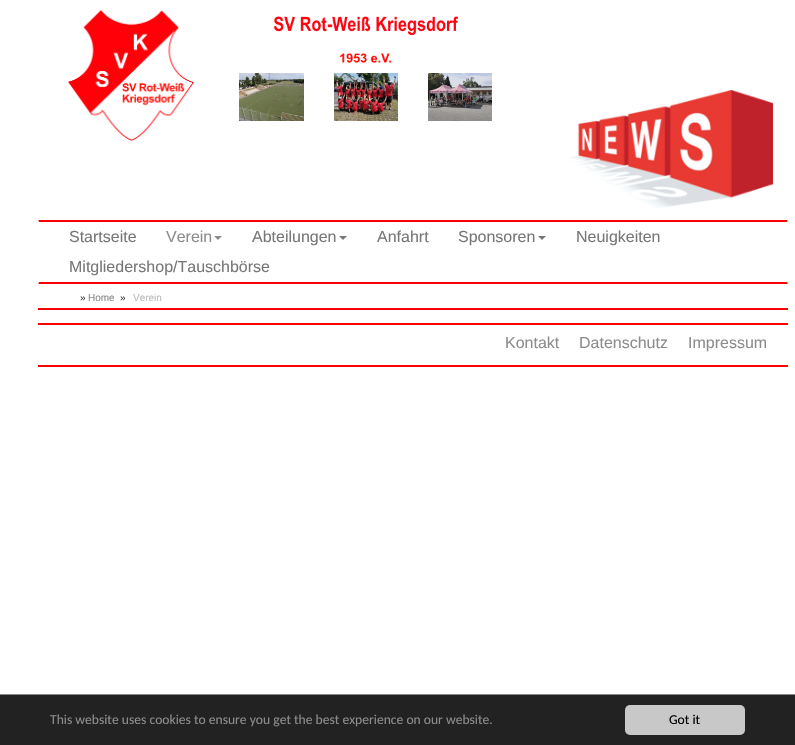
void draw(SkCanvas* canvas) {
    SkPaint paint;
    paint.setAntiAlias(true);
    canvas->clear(0xFFFFFFFF);
    canvas->drawImageRect(SkImages::DeferredFromEncodedData(SkData::MakeFromFileName("img1.png")), SkRect::MakeXYWH(68, 10, 126, 131), SkSamplingOptions());
    canvas->drawImageRect(SkImages::DeferredFromEncodedData(SkData::MakeFromFileName("img2.png")), SkRect::MakeXYWH(273, 16, 186, 47), SkSamplingOptions());
    canvas->drawImageRect(SkImages::DeferredFromEncodedData(SkData::MakeFromFileName("img3.png")), SkRect::MakeXYWH(239, 73, 65, 48), SkSamplingOptions());
    canvas->drawImageRect(SkImages::DeferredFromEncodedData(SkData::MakeFromFileName("img4.png")), SkRect::MakeXYWH(334, 73, 64, 48), SkSamplingOptions());
    canvas->drawImageRect(SkImages::DeferredFromEncodedData(SkData::MakeFromFileName("img5.png")), SkRect::MakeXYWH(428, 73, 64, 48), SkSamplingOptions());
    canvas->drawImageRect(SkImages::DeferredFromEncodedData(SkData::MakeFromFileName("img6.png")), SkRect::MakeXYWH(567, 90, 206, 118), SkSamplingOptions());
    paint.setColor(0xFFFF0000);
    canvas->drawPath(SkPathBuilder().moveTo(38, 220).lineTo(788, 220).lineTo(787, 222).lineTo(39, 222).close().detach(), paint);
    paint.setColor(0xFFFFFFFF);
    canvas->drawPath(SkPathBuilder().moveTo(788, 220).lineTo(788, 284).lineTo(787, 282).lineTo(787, 222).close().detach(), paint);
    paint.setColor(0xFFFF0000);
    canvas->drawPath(SkPathBuilder().moveTo(788, 284).lineTo(38, 284).lineTo(39, 282).lineTo(787, 282).close().detach(), paint);
    paint.setColor(0xFFFFFFFF);
    canvas->drawPath(SkPathBuilder().moveTo(38, 284).lineTo(38, 220).lineTo(39, 222).lineTo(39, 282).close().detach(), paint);
    SkFont font1(fontMgr->matchFamilyStyle("Liberation Sans", SkFontStyle::Normal()), 16);
    font1.setSubpixel(true);
    paint.setColor(0xFF777777);
    canvas->drawString("Startseite", 69, 242, font1, paint);
    paint.setColor(0xFF8C8C8C);
    canvas->drawString("Verein", 166, 242, font1, paint);
    canvas->drawPath(SkPathBuilder().moveTo(214, 236).lineTo(222, 236).lineTo(218, 240).close().detach(), paint);
    paint.setColor(0xFF777777);
    canvas->drawString("Abteilungen", 252, 242, font1, paint);
    canvas->drawPath(SkPathBuilder().moveTo(339, 236).lineTo(347, 236).lineTo(343, 240).close().detach(), paint);
    canvas->drawString("Anfahrt", 377, 242, font1, paint);
    canvas->drawString("Sponsoren", 458, 242, font1, paint);
    canvas->drawPath(SkPathBuilder().moveTo(538, 236).lineTo(546, 236).lineTo(542, 240).close().detach(), paint);
    canvas->drawString("Neuigkeiten", 576, 242, font1, paint);
    canvas->drawString("Mitgliedershop/Tauschbörse", 69, 272, font1, paint);
    paint.setColor(0xFFFF0000);
    canvas->drawRect(SkRect::MakeXYWH(38, 308, 750, 2), paint);
    SkFont font2(fontMgr->matchFamilyStyle("Liberation Sans", SkFontStyle::Normal()), 10);
    font2.setSubpixel(true);
    paint.setColor(0xFF333333);
    canvas->drawString("»", 80, 301, font2, paint);
    paint.setColor(0xFF8C8C8C);
    canvas->drawString("Home", 88, 301, font2, paint);
    paint.setColor(0xFF333333);
    canvas->drawString("»", 120, 301, font2, paint);
    paint.setColor(0xFFBBBBBB);
    canvas->drawString("Verein", 133, 301, font2, paint);
    paint.setColor(0xFFFF0000);
    canvas->drawRect(SkRect::MakeXYWH(38, 323, 750, 2), paint);
    canvas->drawRect(SkRect::MakeXYWH(38, 365, 750, 2), paint);
    paint.setColor(0xFF8C8C8C);
    canvas->drawString("Kontakt", 505, 348, font1, paint);
    canvas->drawString("Datenschutz", 579, 348, font1, paint);
    canvas->drawString("Impressum", 688, 348, font1, paint);
    paint.setColor(0xFF222222);
    canvas->drawRect(SkRect::MakeXYWH(0, 695, 795, 50), paint);
    paint.setColor(0xFF888888);
    canvas->drawRect(SkRect::MakeXYWH(0, 694, 795, 1), paint);
    SkFont font3(fontMgr->matchFamilyStyle("Carlito", SkFontStyle::Normal()), 13.6f);
    font3.setSubpixel(true);
    paint.setColor(0xFF8C8C8C);
    canvas->drawString("This website uses cookies to ensure you get the best experience on our website.", 50, 724, font3, paint);
    paint.setColor(0xFFC8C8C8);
    canvas->drawRoundRect(SkRect::MakeXYWH(625, 705, 120, 30), 5, 5, paint);
    paint.setColor(0xFF000000);
    canvas->drawString("Got it", 669, 724, font3, paint);
}
